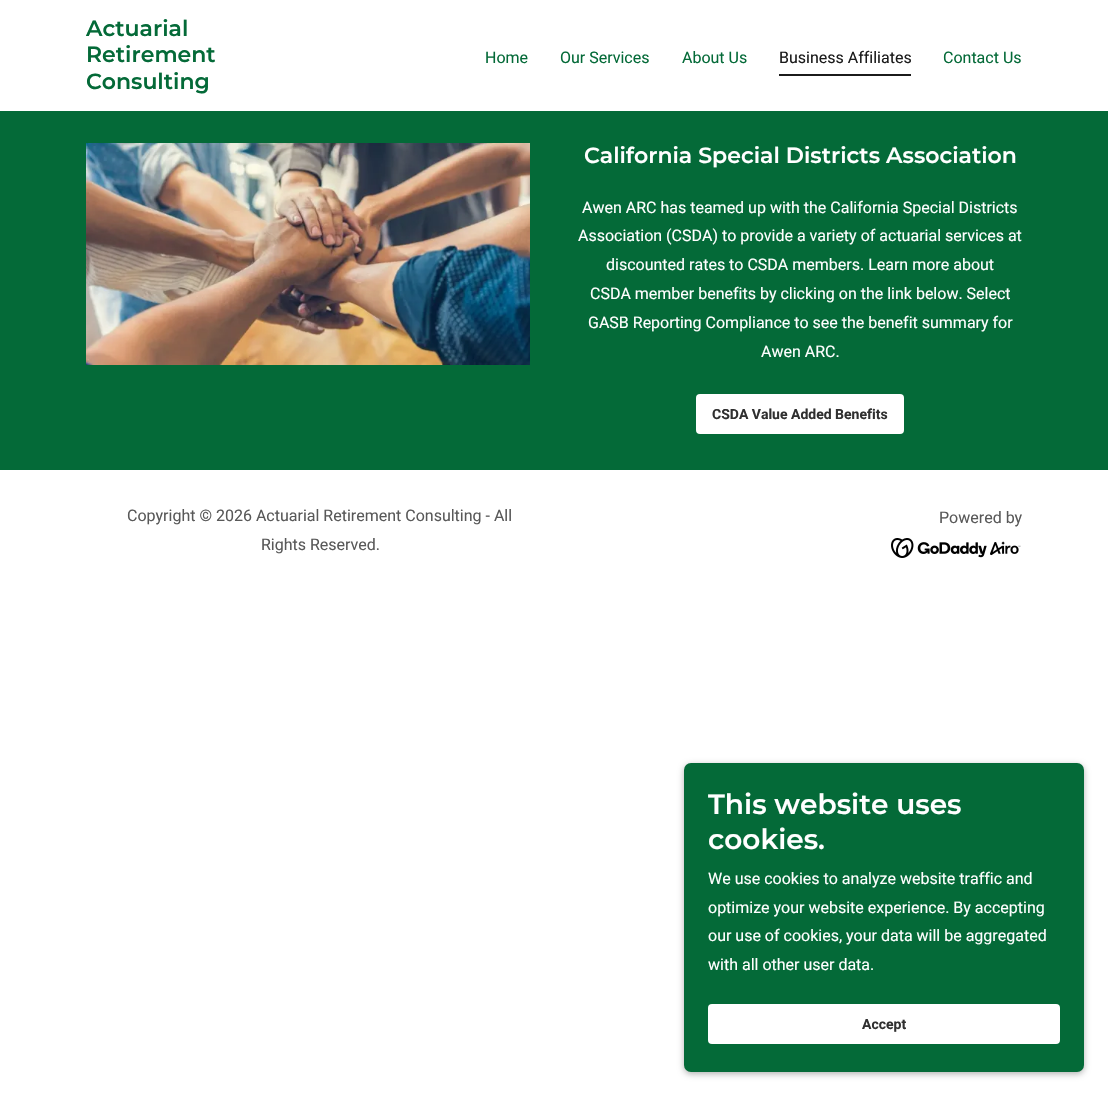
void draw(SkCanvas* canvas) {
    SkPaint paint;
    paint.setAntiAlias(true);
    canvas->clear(0xFFFFFFFF);
    SkFont font1(fontMgr->matchFamilyStyle("Montserrat", SkFontStyle(600, SkFontStyle::kNormal_Width, SkFontStyle::kUpright_Slant)), 22);
    font1.setSubpixel(true);
    paint.setColor(0xFF046A38);
    canvas->drawString("Actuarial", 86, 36, font1, paint);
    canvas->drawString("Retirement", 86, 62, font1, paint);
    canvas->drawString("Consulting", 86, 89, font1, paint);
    SkFont font2(fontMgr->matchFamilyStyle("Roboto", SkFontStyle::Normal()), 16);
    font2.setSubpixel(true);
    canvas->drawString("Home", 485, 63, font2, paint);
    canvas->drawString("Our Services", 560, 63, font2, paint);
    canvas->drawString("About Us", 682, 63, font2, paint);
    paint.setColor(0xFF1B1B1B);
    canvas->drawRect(SkRect::MakeXYWH(779, 74, 132, 2), paint);
    canvas->drawString("Business Affiliates", 779, 63, font2, paint);
    paint.setColor(0xFF046A38);
    canvas->drawString("Contact Us", 943, 63, font2, paint);
    canvas->drawRect(SkRect::MakeXYWH(0, 111, 1108, 359), paint);
    canvas->drawImageRect(SkImages::DeferredFromEncodedData(SkData::MakeFromFileName("img1.png")), SkRect::MakeXYWH(86, 143, 444, 222), SkSamplingOptions());
    paint.setColor(0xFFFFFFFF);
    canvas->drawString("California Special Districts Association", 584, 163, font1, paint);
    canvas->drawString("Awen ARC has teamed up with the California Special Districts", 582, 213, font2, paint);
    canvas->drawString("Association (CSDA) to provide a variety of actuarial services at", 578, 241, font2, paint);
    canvas->drawString("discounted rates to CSDA members. Learn more about", 606, 270, font2, paint);
    canvas->drawString("CSDA member benefits by clicking on the link below. Select", 590, 299, font2, paint);
    canvas->drawString("GASB Reporting Compliance to see the benefit summary for", 588, 328, font2, paint);
    canvas->drawString("Awen ARC.", 761, 357, font2, paint);
    canvas->drawRoundRect(SkRect::MakeXYWH(696, 394, 208, 40), 4, 4, paint);
    SkFont font3(fontMgr->matchFamilyStyle("Roboto", SkFontStyle::Bold()), 14);
    font3.setSubpixel(true);
    paint.setColor(0xFF303030);
    canvas->drawString("CSDA Value Added Benefits", 712, 419, font3, paint);
    paint.setColor(0xFF595959);
    canvas->drawString("Copyright © 2026 Actuarial Retirement Consulting - All", 127, 521, font2, paint);
    canvas->drawString("Rights Reserved.", 261, 550, font2, paint);
    canvas->drawString("Powered by", 939, 523, font2, paint);
    canvas->drawImageRect(SkImages::DeferredFromEncodedData(SkData::MakeFromFileName("img2.png")), SkRect::MakeXYWH(891, 538, 130, 20), SkSamplingOptions());
    paint.setColor(0x4D000000);
    paint.setMaskFilter(SkMaskFilter::MakeBlur(kNormal_SkBlurStyle, 3));
    canvas->drawRoundRect(SkRect::MakeXYWH(684, 765, 400, 309), 7, 7, paint);
    paint.setMaskFilter(nullptr);
    paint.setColor(0xFF046A38);
    canvas->drawRoundRect(SkRect::MakeXYWH(684, 763, 400, 309), 7, 7, paint);
    SkFont font4(fontMgr->matchFamilyStyle("Montserrat", SkFontStyle(600, SkFontStyle::kNormal_Width, SkFontStyle::kUpright_Slant)), 28);
    font4.setSubpixel(true);
    paint.setColor(0xFFFFFFFF);
    canvas->drawString("This website uses", 708, 814, font4, paint);
    canvas->drawString("cookies.", 708, 849, font4, paint);
    canvas->drawString("We use cookies to analyze website traffic and", 708, 884, font2, paint);
    canvas->drawString("optimize your website experience. By accepting", 708, 913, font2, paint);
    canvas->drawString("our use of cookies, your data will be aggregated", 708, 941, font2, paint);
    canvas->drawString("with all other user data.", 708, 970, font2, paint);
    canvas->drawRoundRect(SkRect::MakeXYWH(708, 1004, 352, 40), 4, 4, paint);
    paint.setColor(0xFF303030);
    canvas->drawString("Accept", 862, 1029, font3, paint);
}
